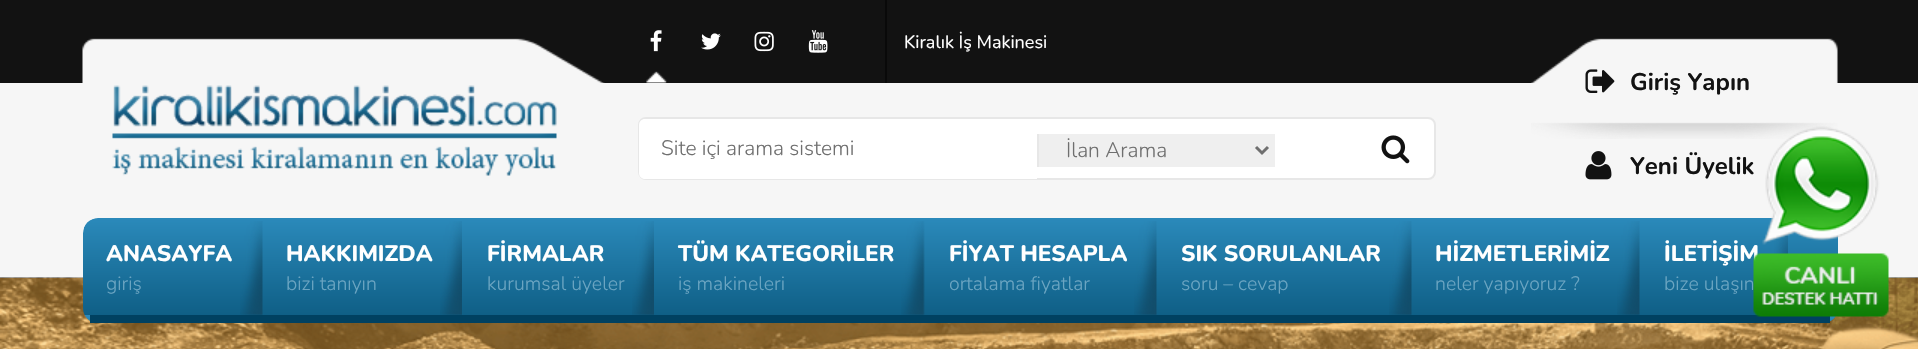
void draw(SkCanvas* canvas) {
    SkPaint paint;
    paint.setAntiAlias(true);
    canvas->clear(0xFFF6F6F6);
    paint.setColor(0xFF121212);
    canvas->drawRect(SkRect::MakeXYWH(0, 0, 1918, 83), paint);
    canvas->drawImageRect(SkImages::DeferredFromEncodedData(SkData::MakeFromFileName("img1.png")), SkRect::MakeXYWH(82, 38, 523, 45), SkSamplingOptions());
    canvas->drawImageRect(SkImages::DeferredFromEncodedData(SkData::MakeFromFileName("img2.png")), SkRect::MakeXYWH(112, 85, 445, 91), SkSamplingOptions());
    canvas->drawImageRect(SkImages::DeferredFromEncodedData(SkData::MakeFromFileName("img3.png")), SkRect::MakeXYWH(646, 71, 21, 12), SkSamplingOptions());
    canvas->drawImageRect(SkImages::DeferredFromEncodedData(SkData::MakeFromFileName("img4.png")), SkRect::MakeXYWH(650, 30, 12, 22), SkSamplingOptions());
    canvas->drawImageRect(SkImages::DeferredFromEncodedData(SkData::MakeFromFileName("img5.png")), SkRect::MakeXYWH(701, 33, 20, 17), SkSamplingOptions());
    canvas->drawImageRect(SkImages::DeferredFromEncodedData(SkData::MakeFromFileName("img6.png")), SkRect::MakeXYWH(754, 31, 20, 21), SkSamplingOptions());
    canvas->drawImageRect(SkImages::DeferredFromEncodedData(SkData::MakeFromFileName("img7.png")), SkRect::MakeXYWH(808, 30, 20, 23), SkSamplingOptions());
    paint.setColor(0xFF090909);
    canvas->drawRect(SkRect::MakeXYWH(885, 0, 2, 83), paint);
    SkFont font1(fontMgr->matchFamilyStyle("Nunito", SkFontStyle::Normal()), 18);
    font1.setSubpixel(true);
    paint.setColor(0xFFFFFFFF);
    canvas->drawString("Kiralık İş Makinesi", 904, 48, font1, paint);
    canvas->drawRoundRect(SkRect::MakeXYWH(639, 118, 796, 61), 7, 7, paint);
    paint.setStyle(SkPaint::kStroke_Style);
    paint.setStrokeWidth(2);
    paint.setColor(0xFFE7E7E7);
    canvas->drawRoundRect(SkRect::MakeXYWH(639, 118, 796, 61), 7, 7, paint);
    paint.setStyle(SkPaint::kFill_Style);
    paint.setColor(0xFFFFFFFF);
    canvas->drawPath(SkPathBuilder().moveTo(645, 119).lineTo(1037, 119).lineTo(1037, 179).lineTo(645, 179).cubicTo(641.5f, 179, 639, 176.5f, 639, 173).lineTo(639, 125).cubicTo(639, 121.5f, 641.5f, 119, 645, 119).close().detach(), paint);
    SkFont font2(fontMgr->matchFamilyStyle("Nunito", SkFontStyle(300, SkFontStyle::kNormal_Width, SkFontStyle::kUpright_Slant)), 21);
    font2.setSubpixel(true);
    paint.setColor(0xFF6F6F6F);
    canvas->drawString("Site içi arama sistemi", 661, 155, font2, paint);
    paint.setColor(0xFFEFEFEF);
    canvas->drawRect(SkRect::MakeXYWH(1039, 134, 236, 33), paint);
    paint.setColor(0xFFE7E7E7);
    canvas->drawRect(SkRect::MakeXYWH(1037, 134, 2, 33), paint);
    paint.setStyle(SkPaint::kStroke_Style);
    paint.setStrokeWidth(3);
    paint.setColor(0xFF6F6F6F);
    canvas->drawPath(SkPathBuilder().moveTo(1256, 147).lineTo(1262, 153).lineTo(1268, 147).detach(), paint);
    paint.setStyle(SkPaint::kFill_Style);
    canvas->drawString("İlan Arama", 1066, 157, font2, paint);
    canvas->drawImageRect(SkImages::DeferredFromEncodedData(SkData::MakeFromFileName("img8.png")), SkRect::MakeXYWH(1381, 135, 29, 29), SkSamplingOptions());
    canvas->drawImageRect(SkImages::DeferredFromEncodedData(SkData::MakeFromFileName("img9.png")), SkRect::MakeXYWH(1531, 38, 307, 101), SkSamplingOptions());
    canvas->drawImageRect(SkImages::DeferredFromEncodedData(SkData::MakeFromFileName("img10.png")), SkRect::MakeXYWH(1585, 69, 30, 24), SkSamplingOptions());
    SkFont font3(fontMgr->matchFamilyStyle("Nunito", SkFontStyle::Bold()), 24);
    font3.setSubpixel(true);
    paint.setColor(0xFF121212);
    canvas->drawString("Giriş Yapın", 1630, 90, font3, paint);
    canvas->drawImageRect(SkImages::DeferredFromEncodedData(SkData::MakeFromFileName("img11.png")), SkRect::MakeXYWH(1585, 151, 27, 29), SkSamplingOptions());
    canvas->drawString("Yeni Üyelik", 1630, 174, font3, paint);
    canvas->drawImageRect(SkImages::DeferredFromEncodedData(SkData::MakeFromFileName("img18.png")), SkRect::MakeXYWH(0, 277, 1918, 72), SkSamplingOptions());
    canvas->save();
    canvas->clipPath(SkPathBuilder().moveTo(98, 218).lineTo(1823, 218).cubicTo(1831.5f, 218, 1838, 224.5f, 1838, 233).lineTo(1838, 308).cubicTo(1838, 316.5f, 1831.5f, 323, 1823, 323).lineTo(98, 323).cubicTo(89.5f, 323, 83, 316.5f, 83, 308).lineTo(83, 233).cubicTo(83, 224.5f, 89.5f, 218, 98, 218).close().detach(), true);
    {
        const SkColor colors[] = {0xFF2B8ABB, 0xFF0F5F86};
        const float stops[] = {0, 1};
        const SkPoint ends[] = {{960, 217}, {960, 315}};
        paint.setShader(SkGradientShader::MakeLinear(ends, colors, stops, 2, SkTileMode::kClamp));
        paint.setAlpha(255);
    }
    canvas->drawPath(SkPathBuilder().moveTo(98, 218).lineTo(1823, 218).cubicTo(1831.5f, 218, 1838, 224.5f, 1838, 233).lineTo(1838, 315).lineTo(83, 315).lineTo(83, 233).cubicTo(83, 224.5f, 89.5f, 218, 98, 218).close().detach(), paint);
    {
        const SkColor colors[] = {0xFF2B8ABB, 0xFF0F5F86};
        const float stops[] = {0, 1};
        const SkPoint ends[] = {{960, 315}, {960, 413}};
        paint.setShader(SkGradientShader::MakeLinear(ends, colors, stops, 2, SkTileMode::kClamp));
        paint.setAlpha(255);
    }
    canvas->drawRect(SkRect::MakeXYWH(83, 315, 1755, 7), paint);
    canvas->restore();
    paint.setShader(nullptr);
    paint.setColor(0xFF004161);
    canvas->drawRect(SkRect::MakeXYWH(90, 315, 1740, 8), paint);
    canvas->drawImageRect(SkImages::DeferredFromEncodedData(SkData::MakeFromFileName("img12.png")), SkRect::MakeXYWH(240, 221, 23, 94), SkSamplingOptions());
    SkFont font4(fontMgr->matchFamilyStyle("Nunito", SkFontStyle(800, SkFontStyle::kNormal_Width, SkFontStyle::kUpright_Slant)), 22.5f);
    font4.setSubpixel(true);
    paint.setColor(0xFFFFFFFF);
    canvas->drawString("ANASAYFA", 106, 261, font4, paint);
    SkFont font5(fontMgr->matchFamilyStyle("Nunito", SkFontStyle(300, SkFontStyle::kNormal_Width, SkFontStyle::kUpright_Slant)), 19.5f);
    font5.setSubpixel(true);
    paint.setColor(0xFF6BA5C2);
    canvas->drawString("giriş", 106, 290, font5, paint);
    canvas->drawImageRect(SkImages::DeferredFromEncodedData(SkData::MakeFromFileName("img13.png")), SkRect::MakeXYWH(440, 221, 22, 94), SkSamplingOptions());
    paint.setColor(0xFFFFFFFF);
    canvas->drawString("HAKKIMIZDA", 286, 261, font4, paint);
    paint.setColor(0xFF6BA5C2);
    canvas->drawString("bizi tanıyın", 286, 290, font5, paint);
    canvas->drawImageRect(SkImages::DeferredFromEncodedData(SkData::MakeFromFileName("img13.png")), SkRect::MakeXYWH(632, 221, 22, 94), SkSamplingOptions());
    paint.setColor(0xFFFFFFFF);
    canvas->drawString("FİRMALAR", 487, 261, font4, paint);
    paint.setColor(0xFF6BA5C2);
    canvas->drawString("kurumsal üyeler", 487, 290, font5, paint);
    canvas->drawImageRect(SkImages::DeferredFromEncodedData(SkData::MakeFromFileName("img14.png")), SkRect::MakeXYWH(901, 221, 24, 94), SkSamplingOptions());
    paint.setColor(0xFFFFFFFF);
    canvas->drawString("TÜM KATEGORİLER", 678, 261, font4, paint);
    paint.setColor(0xFF6BA5C2);
    canvas->drawString("iş makineleri", 678, 290, font5, paint);
    canvas->drawImageRect(SkImages::DeferredFromEncodedData(SkData::MakeFromFileName("img15.png")), SkRect::MakeXYWH(1134, 221, 23, 94), SkSamplingOptions());
    paint.setColor(0xFFFFFFFF);
    canvas->drawString("FİYAT HESAPLA", 949, 261, font4, paint);
    paint.setColor(0xFF6BA5C2);
    canvas->drawString("ortalama fiyatlar", 949, 290, font5, paint);
    canvas->drawImageRect(SkImages::DeferredFromEncodedData(SkData::MakeFromFileName("img15.png")), SkRect::MakeXYWH(1389, 221, 23, 94), SkSamplingOptions());
    paint.setColor(0xFFFFFFFF);
    canvas->drawString("SIK SORULANLAR", 1181, 261, font4, paint);
    paint.setColor(0xFF6BA5C2);
    canvas->drawString("soru – cevap", 1181, 290, font5, paint);
    canvas->drawImageRect(SkImages::DeferredFromEncodedData(SkData::MakeFromFileName("img12.png")), SkRect::MakeXYWH(1617, 221, 23, 94), SkSamplingOptions());
    paint.setColor(0xFFFFFFFF);
    canvas->drawString("HİZMETLERİMİZ", 1435, 261, font4, paint);
    paint.setColor(0xFF6BA5C2);
    canvas->drawString("neler yapıyoruz ?", 1435, 290, font5, paint);
    canvas->drawImageRect(SkImages::DeferredFromEncodedData(SkData::MakeFromFileName("img16.png")), SkRect::MakeXYWH(1774, 233, 14, 21), SkSamplingOptions());
    paint.setColor(0xFFFFFFFF);
    canvas->drawString("İLETİŞİM", 1664, 261, font4, paint);
    paint.setColor(0xFF6BA5C2);
    canvas->drawString("bize ulaşın", 1664, 290, font5, paint);
    canvas->drawImageRect(SkImages::DeferredFromEncodedData(SkData::MakeFromFileName("img17.png")), SkRect::MakeXYWH(1753, 126, 136, 191), SkSamplingOptions());
}
